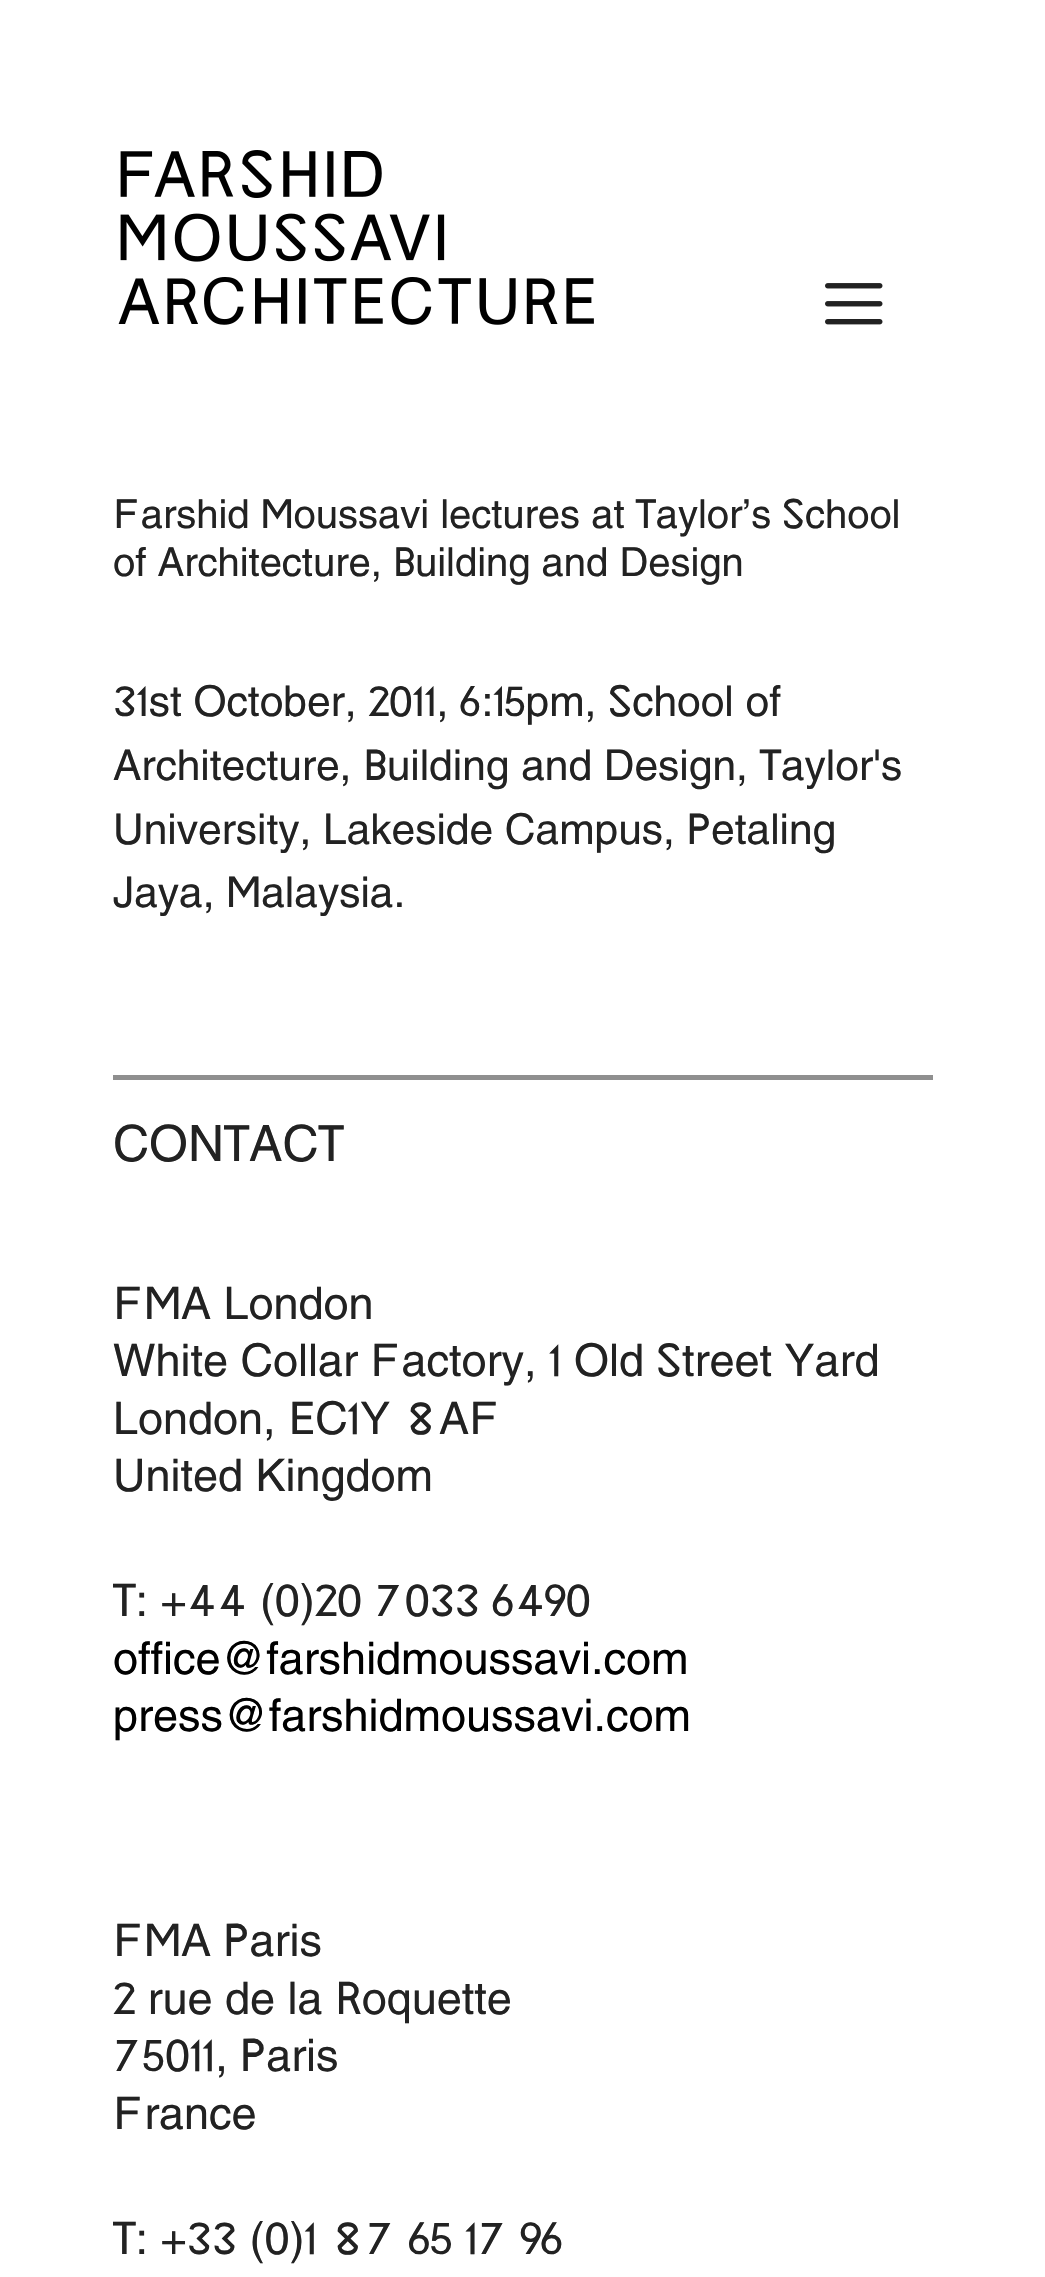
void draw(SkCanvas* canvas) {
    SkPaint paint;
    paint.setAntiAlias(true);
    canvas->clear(0xFFFFFFFF);
    canvas->drawImageRect(SkImages::DeferredFromEncodedData(SkData::MakeFromFileName("img1.png")), SkRect::MakeXYWH(118, 150, 476, 175), SkSamplingOptions());
    canvas->drawImageRect(SkImages::DeferredFromEncodedData(SkData::MakeFromFileName("img2.png")), SkRect::MakeXYWH(825, 283, 58, 42), SkSamplingOptions());
    SkFont font1(fontMgr->matchFamilyStyle("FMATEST", SkFontStyle(500, SkFontStyle::kNormal_Width, SkFontStyle::kUpright_Slant)), 40);
    font1.setSubpixel(true);
    paint.setColor(0xFF222222);
    canvas->drawString("Farshid Moussavi lectures at Taylor’s School", 113, 528, font1, paint);
    canvas->drawString("of Architecture, Building and Design", 113, 576, font1, paint);
    SkFont font2(fontMgr->matchFamilyStyle("FMATEST", SkFontStyle(500, SkFontStyle::kNormal_Width, SkFontStyle::kUpright_Slant)), 42.5f);
    font2.setSubpixel(true);
    canvas->drawString("31st October, 2011, 6:15pm, School of", 113, 716, font2, paint);
    canvas->drawString("Architecture, Building and Design, Taylor's", 113, 780, font2, paint);
    canvas->drawString("University, Lakeside Campus, Petaling", 113, 844, font2, paint);
    canvas->drawString("Jaya, Malaysia.", 113, 907, font2, paint);
    paint.setColor(0xFF8F8F8F);
    canvas->drawRect(SkRect::MakeXYWH(113, 1075, 820, 5), paint);
    SkFont font3(fontMgr->matchFamilyStyle("FMATEST", SkFontStyle(500, SkFontStyle::kNormal_Width, SkFontStyle::kUpright_Slant)), 50);
    font3.setSubpixel(true);
    paint.setColor(0xFF222222);
    canvas->drawString("CONTACT", 113, 1161, font3, paint);
    SkFont font4(fontMgr->matchFamilyStyle("FMATEST", SkFontStyle(500, SkFontStyle::kNormal_Width, SkFontStyle::kUpright_Slant)), 45);
    font4.setSubpixel(true);
    canvas->drawString("FMA London", 113, 1319, font4, paint);
    canvas->drawString("White Collar Factory, 1 Old Street Yard", 113, 1376, font4, paint);
    canvas->drawString("London, EC1Y 8AF", 113, 1434, font4, paint);
    canvas->drawString("United Kingdom", 113, 1491, font4, paint);
    canvas->drawString("T: +44 (0)20 7033 6490", 113, 1616, font4, paint);
    paint.setColor(0xFF000000);
    canvas->drawString("office@farshidmoussavi.com", 113, 1674, font4, paint);
    canvas->drawString("press@farshidmoussavi.com", 113, 1731, font4, paint);
    paint.setColor(0xFF222222);
    canvas->drawString("FMA Paris", 113, 1956, font4, paint);
    canvas->drawString("2 rue de la Roquette", 113, 2014, font4, paint);
    canvas->drawString("75011, Paris", 113, 2071, font4, paint);
    canvas->drawString("France", 113, 2129, font4, paint);
    canvas->drawString("T: +33 (0)1 87 65 17 96", 113, 2254, font4, paint);
}
